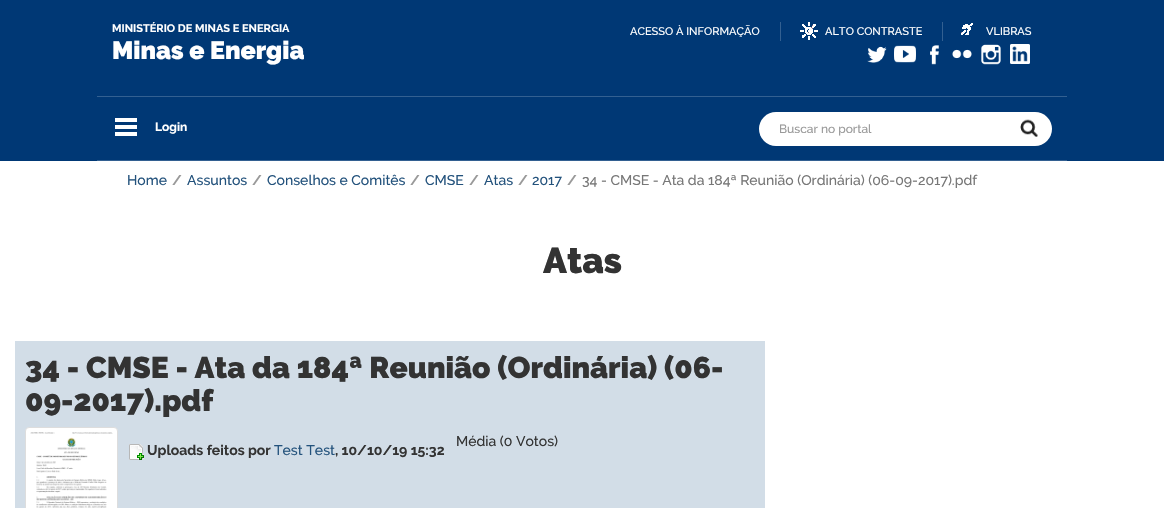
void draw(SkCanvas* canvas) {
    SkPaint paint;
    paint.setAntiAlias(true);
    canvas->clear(0xFFFFFFFF);
    paint.setColor(0xFF003875);
    canvas->drawRect(SkRect::MakeXYWH(0, 0, 1164, 161), paint);
    SkFont font1(fontMgr->matchFamilyStyle("Raleway", SkFontStyle::Bold()), 11);
    font1.setSubpixel(true);
    paint.setColor(0xFFFFFFFF);
    canvas->drawString("MINISTÉRIO DE MINAS E ENERGIA", 112, 32, font1, paint);
    SkFont font2(fontMgr->matchFamilyStyle("Raleway", SkFontStyle(900, SkFontStyle::kNormal_Width, SkFontStyle::kUpright_Slant)), 25);
    font2.setSubpixel(true);
    canvas->drawString("Minas e Energia", 112, 59, font2, paint);
    paint.setColor(0xFF336091);
    canvas->drawRect(SkRect::MakeXYWH(780, 22, 1, 19), paint);
    SkFont font3(fontMgr->matchFamilyStyle("Raleway", SkFontStyle(500, SkFontStyle::kNormal_Width, SkFontStyle::kUpright_Slant)), 11);
    font3.setSubpixel(true);
    paint.setColor(0xFFFFFFFF);
    canvas->drawString("ACESSO À INFORMAÇÃO", 630, 35, font3, paint);
    paint.setColor(0xFF336091);
    canvas->drawRect(SkRect::MakeXYWH(942, 22, 1, 19), paint);
    canvas->drawImageRect(SkImages::DeferredFromEncodedData(SkData::MakeFromFileName("img1.png")), SkRect::MakeXYWH(800, 22, 18, 18), SkSamplingOptions());
    paint.setColor(0xFFFFFFFF);
    canvas->drawString("ALTO CONTRASTE", 825, 35, font3, paint);
    canvas->drawImageRect(SkImages::DeferredFromEncodedData(SkData::MakeFromFileName("img2.png")), SkRect::MakeXYWH(961, 23, 12, 12), SkSamplingOptions());
    canvas->drawString("VLIBRAS", 986, 35, font3, paint);
    canvas->drawImageRect(SkImages::DeferredFromEncodedData(SkData::MakeFromFileName("img3.png")), SkRect::MakeXYWH(867, 46, 20, 17), SkSamplingOptions());
    canvas->drawImageRect(SkImages::DeferredFromEncodedData(SkData::MakeFromFileName("img4.png")), SkRect::MakeXYWH(894, 45, 22, 18), SkSamplingOptions());
    canvas->drawImageRect(SkImages::DeferredFromEncodedData(SkData::MakeFromFileName("img5.png")), SkRect::MakeXYWH(930, 45, 9, 20), SkSamplingOptions());
    canvas->drawImageRect(SkImages::DeferredFromEncodedData(SkData::MakeFromFileName("img6.png")), SkRect::MakeXYWH(952, 49, 20, 10), SkSamplingOptions());
    canvas->drawImageRect(SkImages::DeferredFromEncodedData(SkData::MakeFromFileName("img7.png")), SkRect::MakeXYWH(981, 44, 20, 21), SkSamplingOptions());
    canvas->drawImageRect(SkImages::DeferredFromEncodedData(SkData::MakeFromFileName("img8.png")), SkRect::MakeXYWH(1010, 44, 20, 20), SkSamplingOptions());
    paint.setColor(0xFF336091);
    canvas->drawRect(SkRect::MakeXYWH(97, 96, 970, 1), paint);
    canvas->drawImageRect(SkImages::DeferredFromEncodedData(SkData::MakeFromFileName("img9.png")), SkRect::MakeXYWH(115, 118, 22, 18), SkSamplingOptions());
    SkFont font4(fontMgr->matchFamilyStyle("Raleway", SkFontStyle::Bold()), 12);
    font4.setSubpixel(true);
    paint.setColor(0xFFFFFFFF);
    canvas->drawString("Login", 155, 131, font4, paint);
    canvas->drawRoundRect(SkRect::MakeXYWH(759, 112, 293, 34), 17, 17, paint);
    SkFont font5(fontMgr->matchFamilyStyle("Raleway", SkFontStyle(500, SkFontStyle::kNormal_Width, SkFontStyle::kUpright_Slant)), 12);
    font5.setSubpixel(true);
    paint.setColor(0xFF999999);
    canvas->drawString("Buscar no portal", 779, 133, font5, paint);
    canvas->drawImageRect(SkImages::DeferredFromEncodedData(SkData::MakeFromFileName("img10.png")), SkRect::MakeXYWH(1020, 119, 18, 18), SkSamplingOptions());
    paint.setColor(0xFF336091);
    canvas->drawRect(SkRect::MakeXYWH(97, 160, 970, 1), paint);
    SkFont font6(fontMgr->matchFamilyStyle("Raleway", SkFontStyle(500, SkFontStyle::kNormal_Width, SkFontStyle::kUpright_Slant)), 14);
    font6.setSubpixel(true);
    paint.setColor(0xFF23527C);
    canvas->drawString("Home", 127, 185, font6, paint);
    SkFont font7(fontMgr->matchFamilyStyle("Raleway", SkFontStyle::Bold()), 14);
    font7.setSubpixel(true);
    paint.setColor(0xFF999999);
    canvas->drawString("/", 172, 185, font7, paint);
    paint.setColor(0xFF23527C);
    canvas->drawString("Assuntos", 187, 185, font6, paint);
    paint.setColor(0xFF999999);
    canvas->drawString("/", 252, 185, font7, paint);
    paint.setColor(0xFF23527C);
    canvas->drawString("Conselhos e Comitês", 267, 185, font6, paint);
    paint.setColor(0xFF999999);
    canvas->drawString("/", 410, 185, font7, paint);
    paint.setColor(0xFF23527C);
    canvas->drawString("CMSE", 425, 185, font6, paint);
    paint.setColor(0xFF999999);
    canvas->drawString("/", 469, 185, font7, paint);
    paint.setColor(0xFF23527C);
    canvas->drawString("Atas", 484, 185, font6, paint);
    paint.setColor(0xFF999999);
    canvas->drawString("/", 518, 185, font7, paint);
    paint.setColor(0xFF23527C);
    canvas->drawString("2017", 532, 185, font6, paint);
    paint.setColor(0xFF999999);
    canvas->drawString("/", 567, 185, font7, paint);
    paint.setColor(0xFF777777);
    canvas->drawString("34 - CMSE - Ata da 184ª Reunião (Ordinária) (06-09-2017).pdf", 582, 185, font6, paint);
    SkFont font8(fontMgr->matchFamilyStyle("Raleway", SkFontStyle(900, SkFontStyle::kNormal_Width, SkFontStyle::kUpright_Slant)), 36);
    font8.setSubpixel(true);
    paint.setColor(0xFF333333);
    canvas->drawString("Atas", 543, 273, font8, paint);
    paint.setColor(0xFFD2DDE7);
    canvas->drawRect(SkRect::MakeXYWH(15, 341, 750, 167), paint);
    SkFont font9(fontMgr->matchFamilyStyle("Raleway", SkFontStyle(900, SkFontStyle::kNormal_Width, SkFontStyle::kUpright_Slant)), 30);
    font9.setSubpixel(true);
    paint.setColor(0xFF333333);
    canvas->drawString("34 - CMSE - Ata da 184ª Reunião (Ordinária) (06-", 25, 378, font9, paint);
    canvas->save();
    canvas->clipRect(SkRect::MakeXYWH(25, 351, 730, 66));
    canvas->drawString("09-2017).pdf", 25, 411, font9, paint);
    canvas->restore();
    paint.setColor(0xFFFFFFFF);
    canvas->drawRoundRect(SkRect::MakeXYWH(25.5f, 427.5f, 92, 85), 3.5f, 3.5f, paint);
    paint.setStyle(SkPaint::kStroke_Style);
    paint.setStrokeWidth(1);
    paint.setColor(0xFFDDDDDD);
    canvas->drawRoundRect(SkRect::MakeXYWH(25.5f, 427.5f, 92, 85), 3.5f, 3.5f, paint);
    canvas->drawImageRect(SkImages::DeferredFromEncodedData(SkData::MakeFromFileName("img11.png")), SkRect::MakeXYWH(30, 432, 83, 76), SkSamplingOptions());
    paint.setStyle(SkPaint::kFill_Style);
    paint.setColor(0xFF333333);
    canvas->drawString("Média (0 Votos)", 456, 446, font6, paint);
    canvas->drawImageRect(SkImages::DeferredFromEncodedData(SkData::MakeFromFileName("img12.png")), SkRect::MakeXYWH(129, 444, 15, 16), SkSamplingOptions());
    canvas->drawString("Uploads feitos por", 147, 455, font7, paint);
    paint.setColor(0xFF23527C);
    canvas->drawString("Test Test", 274, 455, font6, paint);
    paint.setColor(0xFF333333);
    canvas->drawString(", 10/10/19 15:32", 335, 455, font7, paint);
}
